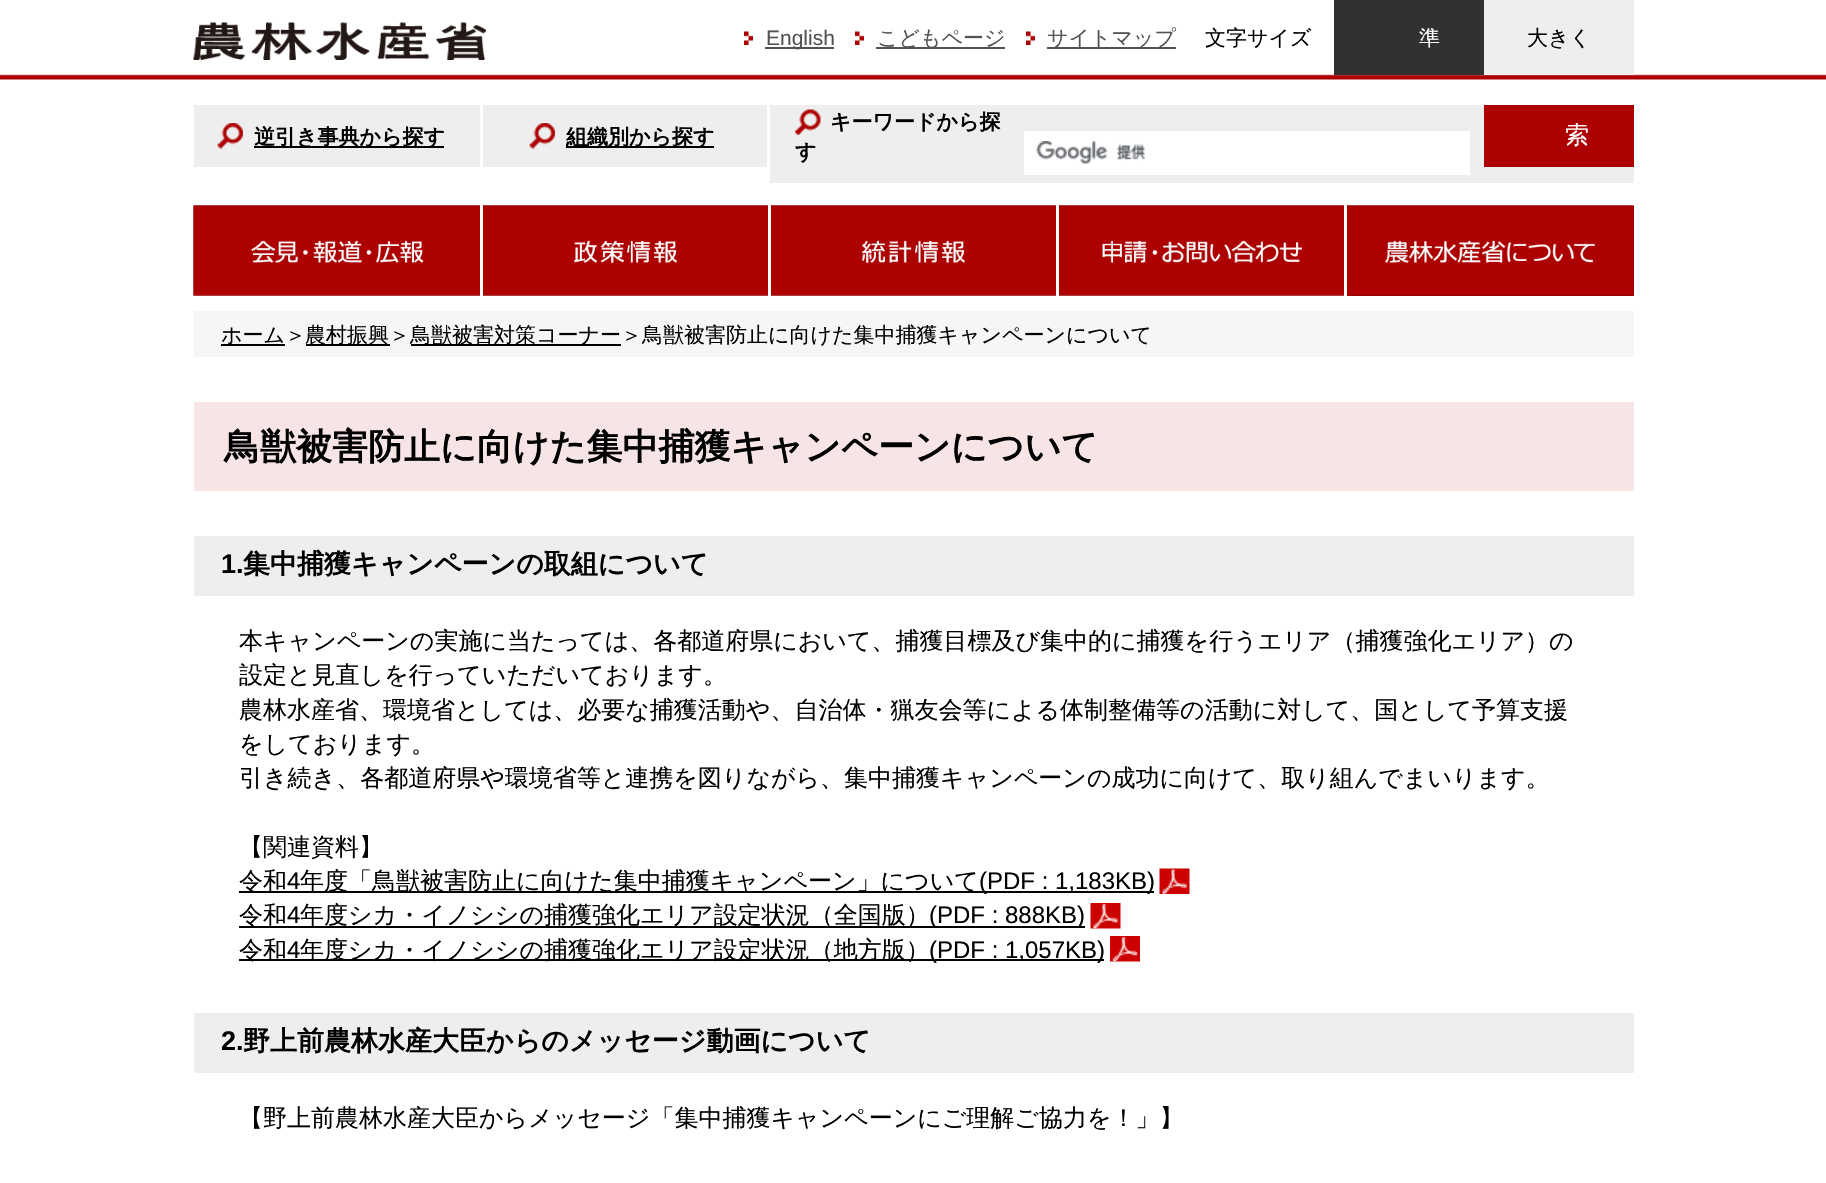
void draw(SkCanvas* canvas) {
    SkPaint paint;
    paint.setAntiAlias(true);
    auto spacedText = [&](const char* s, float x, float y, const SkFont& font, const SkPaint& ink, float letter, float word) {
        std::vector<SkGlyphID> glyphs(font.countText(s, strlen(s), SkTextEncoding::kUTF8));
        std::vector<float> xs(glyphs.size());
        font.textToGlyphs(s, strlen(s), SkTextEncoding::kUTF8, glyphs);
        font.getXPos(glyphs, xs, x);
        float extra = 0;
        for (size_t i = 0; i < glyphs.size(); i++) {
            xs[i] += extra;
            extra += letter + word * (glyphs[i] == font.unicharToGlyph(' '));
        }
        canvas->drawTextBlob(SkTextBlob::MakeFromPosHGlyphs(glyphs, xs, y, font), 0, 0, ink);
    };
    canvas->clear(0xFFFFFFFF);
    canvas->drawImageRect(SkImages::DeferredFromEncodedData(SkData::MakeFromFileName("img1.png")), SkRect::MakeXYWH(0, 74, 1826, 6), SkSamplingOptions());
    canvas->drawImageRect(SkImages::DeferredFromEncodedData(SkData::MakeFromFileName("img2.png")), SkRect::MakeXYWH(193, 22, 293, 38), SkSamplingOptions());
    canvas->drawImageRect(SkImages::DeferredFromEncodedData(SkData::MakeFromFileName("img3.png")), SkRect::MakeXYWH(744, 31, 9, 14), SkSamplingOptions());
    paint.setColor(0xFF535353);
    canvas->drawRect(SkRect::MakeXYWH(765, 47, 69, 2), paint);
    SkFont font1(fontMgr->matchFamilyStyle("Liberation Sans", SkFontStyle::Normal()), 21);
    font1.setSubpixel(true);
    canvas->drawString("English", 766, 45, font1, paint);
    canvas->drawImageRect(SkImages::DeferredFromEncodedData(SkData::MakeFromFileName("img4.png")), SkRect::MakeXYWH(855, 31, 9, 14), SkSamplingOptions());
    canvas->drawRect(SkRect::MakeXYWH(876, 47, 129, 2), paint);
    SkFont font2(fontMgr->matchFamilyStyle("WenQuanYi Zen Hei", SkFontStyle(500, SkFontStyle::kNormal_Width, SkFontStyle::kUpright_Slant)), 21);
    font2.setSubpixel(true);
    canvas->drawString("こどもページ", 877, 45, font2, paint);
    canvas->drawImageRect(SkImages::DeferredFromEncodedData(SkData::MakeFromFileName("img3.png")), SkRect::MakeXYWH(1026, 31, 9, 14), SkSamplingOptions());
    canvas->drawRect(SkRect::MakeXYWH(1047, 47, 129, 2), paint);
    canvas->drawString("サイトマップ", 1047, 45, font2, paint);
    paint.setColor(0xFF000000);
    canvas->drawString("文字サイズ", 1205, 45, font2, paint);
    paint.setColor(0xFF313131);
    canvas->drawRect(SkRect::MakeXYWH(1334, 0, 150, 75), paint);
    SkFont font3(fontMgr->matchFamilyStyle("Noto Sans", SkFontStyle::Normal()), 21);
    font3.setSubpixel(true);
    paint.setColor(0xFFFFFFFF);
    spacedText("標", 1377, 45, font3, paint, 21, 0);
    canvas->drawString("準", 1419, 45, font2, paint);
    paint.setColor(0xFFEEEEEE);
    canvas->drawRect(SkRect::MakeXYWH(1484, 0, 150, 75), paint);
    paint.setColor(0xFF000000);
    canvas->drawString("大きく", 1527, 45, font2, paint);
    paint.setColor(0xFFEEEEEE);
    canvas->drawRect(SkRect::MakeXYWH(194, 105, 286, 62), paint);
    canvas->drawImageRect(SkImages::DeferredFromEncodedData(SkData::MakeFromFileName("img5.png")), SkRect::MakeXYWH(217, 123, 26, 26), SkSamplingOptions());
    paint.setColor(0xFF000000);
    canvas->drawRect(SkRect::MakeXYWH(254, 146, 190, 2), paint);
    SkFont font4(fontMgr->matchFamilyStyle("WenQuanYi Zen Hei", SkFontStyle::Bold()), 21);
    font4.setSubpixel(true);
    canvas->drawString("逆引き事典から探す", 254, 144, font4, paint);
    paint.setColor(0xFFEEEEEE);
    canvas->drawRect(SkRect::MakeXYWH(483, 105, 284, 62), paint);
    canvas->drawImageRect(SkImages::DeferredFromEncodedData(SkData::MakeFromFileName("img6.png")), SkRect::MakeXYWH(529, 123, 26, 26), SkSamplingOptions());
    paint.setColor(0xFF000000);
    canvas->drawRect(SkRect::MakeXYWH(566, 146, 148, 2), paint);
    canvas->drawString("組織別から探す", 566, 144, font4, paint);
    paint.setColor(0xFFEEEEEE);
    canvas->drawRect(SkRect::MakeXYWH(770, 105, 864, 78), paint);
    canvas->drawImageRect(SkImages::DeferredFromEncodedData(SkData::MakeFromFileName("img7.png")), SkRect::MakeXYWH(795, 109, 26, 26), SkSamplingOptions());
    paint.setColor(0xFF000000);
    canvas->drawString("キーワードから探", 830, 129, font4, paint);
    canvas->drawString("す", 795, 159, font4, paint);
    paint.setColor(0xFFFFFFFF);
    canvas->drawRect(SkRect::MakeXYWH(1024, 131, 446, 44), paint);
    canvas->drawImageRect(SkImages::DeferredFromEncodedData(SkData::MakeFromFileName("img8.png")), SkRect::MakeXYWH(1036, 141, 110, 23), SkSamplingOptions());
    paint.setColor(0xFFAD0000);
    canvas->drawRect(SkRect::MakeXYWH(1484, 105, 150, 62), paint);
    SkFont font5(fontMgr->matchFamilyStyle("Noto Sans", SkFontStyle::Normal()), 24);
    font5.setSubpixel(true);
    paint.setColor(0xFFFFFFFF);
    spacedText("検", 1529, 143, font5, paint, 12, 0);
    SkFont font6(fontMgr->matchFamilyStyle("WenQuanYi Zen Hei", SkFontStyle(500, SkFontStyle::kNormal_Width, SkFontStyle::kUpright_Slant)), 24);
    font6.setSubpixel(true);
    canvas->drawString("索", 1565, 143, font6, paint);
    canvas->drawImageRect(SkImages::DeferredFromEncodedData(SkData::MakeFromFileName("img9.png")), SkRect::MakeXYWH(193, 205, 287, 91), SkSamplingOptions());
    canvas->drawImageRect(SkImages::DeferredFromEncodedData(SkData::MakeFromFileName("img10.png")), SkRect::MakeXYWH(193, 205, 287, 91), SkSamplingOptions());
    canvas->drawImageRect(SkImages::DeferredFromEncodedData(SkData::MakeFromFileName("img11.png")), SkRect::MakeXYWH(483, 205, 285, 91), SkSamplingOptions());
    canvas->drawImageRect(SkImages::DeferredFromEncodedData(SkData::MakeFromFileName("img12.png")), SkRect::MakeXYWH(483, 205, 285, 91), SkSamplingOptions());
    canvas->drawImageRect(SkImages::DeferredFromEncodedData(SkData::MakeFromFileName("img13.png")), SkRect::MakeXYWH(771, 205, 285, 91), SkSamplingOptions());
    canvas->drawImageRect(SkImages::DeferredFromEncodedData(SkData::MakeFromFileName("img14.png")), SkRect::MakeXYWH(771, 205, 285, 91), SkSamplingOptions());
    canvas->drawImageRect(SkImages::DeferredFromEncodedData(SkData::MakeFromFileName("img15.png")), SkRect::MakeXYWH(1059, 205, 285, 91), SkSamplingOptions());
    canvas->drawImageRect(SkImages::DeferredFromEncodedData(SkData::MakeFromFileName("img16.png")), SkRect::MakeXYWH(1059, 205, 285, 91), SkSamplingOptions());
    paint.setColor(0xFFAD0000);
    canvas->drawRect(SkRect::MakeXYWH(1347, 206, 287, 90), paint);
    canvas->drawImageRect(SkImages::DeferredFromEncodedData(SkData::MakeFromFileName("img17.png")), SkRect::MakeXYWH(1347, 205, 287, 91), SkSamplingOptions());
    canvas->drawImageRect(SkImages::DeferredFromEncodedData(SkData::MakeFromFileName("img18.png")), SkRect::MakeXYWH(1347, 205, 287, 91), SkSamplingOptions());
    paint.setColor(0xFFF6F6F6);
    canvas->drawRect(SkRect::MakeXYWH(194, 311, 1440, 46), paint);
    paint.setColor(0xFF000000);
    canvas->drawRect(SkRect::MakeXYWH(221, 344, 64, 2), paint);
    canvas->drawString("ホーム＞", 221, 342, font2, paint);
    canvas->drawRect(SkRect::MakeXYWH(306, 344, 84, 2), paint);
    canvas->drawString("農村振興＞", 305, 342, font2, paint);
    canvas->drawRect(SkRect::MakeXYWH(411, 344, 210, 2), paint);
    canvas->drawString("鳥獣被害対策コーナー＞鳥獣被害防止に向けた集中捕獲キャンペーンについて", 410, 342, font2, paint);
    paint.setColor(0xFFF7E5E5);
    canvas->drawRect(SkRect::MakeXYWH(194, 402, 1440, 89), paint);
    SkFont font7(fontMgr->matchFamilyStyle("WenQuanYi Zen Hei", SkFontStyle::Bold()), 36);
    font7.setSubpixel(true);
    paint.setColor(0xFF000000);
    canvas->drawString("鳥獣被害防止に向けた集中捕獲キャンペーンについて", 224, 459, font7, paint);
    paint.setColor(0xFFEEEEEE);
    canvas->drawRect(SkRect::MakeXYWH(194, 536, 1440, 60), paint);
    SkFont font8(fontMgr->matchFamilyStyle("Liberation Sans", SkFontStyle::Bold()), 27);
    font8.setSubpixel(true);
    paint.setColor(0xFF000000);
    canvas->drawString("1.", 221, 573, font8, paint);
    SkFont font9(fontMgr->matchFamilyStyle("WenQuanYi Zen Hei", SkFontStyle::Bold()), 27);
    font9.setSubpixel(true);
    canvas->drawString("集中捕獲キャンペーンの取組について", 243, 573, font9, paint);
    canvas->drawString("本キャンペーンの実施に当たっては、各都道府県において、捕獲目標及び集中的に捕獲を行うエリア（捕獲強化エリア）の", 239, 649, font6, paint);
    canvas->drawString("設定と見直しを行っていただいております。", 239, 683, font6, paint);
    canvas->drawString("農林水産省、環境省としては、必要な捕獲活動や、自治体・猟友会等による体制整備等の活動に対して、国として予算支援", 239, 718, font6, paint);
    canvas->drawString("をしております。", 239, 752, font6, paint);
    canvas->drawString("引き続き、各都道府県や環境省等と連携を図りながら、集中捕獲キャンペーンの成功に向けて、取り組んでまいります。", 239, 786, font6, paint);
    canvas->drawString("【関連資料】", 239, 855, font6, paint);
    canvas->drawRect(SkRect::MakeXYWH(239, 891, 915, 2), paint);
    canvas->drawString("令和", 239, 889, font6, paint);
    SkFont font10(fontMgr->matchFamilyStyle("Liberation Sans", SkFontStyle::Normal()), 24);
    font10.setSubpixel(true);
    canvas->drawString("4", 287, 889, font10, paint);
    canvas->drawString("年度「鳥獣被害防止に向けた集中捕獲キャンペーン」について", 300, 889, font6, paint);
    canvas->drawString("(PDF : 1,183KB)", 979, 889, font10, paint);
    canvas->drawImageRect(SkImages::DeferredFromEncodedData(SkData::MakeFromFileName("img19.png")), SkRect::MakeXYWH(1159, 868, 31, 26), SkSamplingOptions());
    canvas->drawRect(SkRect::MakeXYWH(239, 926, 846, 2), paint);
    canvas->drawString("令和", 239, 923, font6, paint);
    canvas->drawString("4", 287, 923, font10, paint);
    canvas->drawString("年度シカ・イノシシの捕獲強化エリア設定状況（全国版）", 300, 923, font6, paint);
    canvas->drawString("(PDF : 888KB)", 929, 923, font10, paint);
    canvas->drawImageRect(SkImages::DeferredFromEncodedData(SkData::MakeFromFileName("img20.png")), SkRect::MakeXYWH(1090, 903, 31, 26), SkSamplingOptions());
    canvas->drawRect(SkRect::MakeXYWH(239, 959, 865, 2), paint);
    canvas->drawString("令和", 239, 958, font6, paint);
    canvas->drawString("4", 287, 958, font10, paint);
    canvas->drawString("年度シカ・イノシシの捕獲強化エリア設定状況（地方版）", 300, 958, font6, paint);
    canvas->drawString("(PDF : 1,057KB)", 929, 958, font10, paint);
    canvas->drawImageRect(SkImages::DeferredFromEncodedData(SkData::MakeFromFileName("img21.png")), SkRect::MakeXYWH(1110, 936, 30, 26), SkSamplingOptions());
    paint.setColor(0xFFEEEEEE);
    canvas->drawRect(SkRect::MakeXYWH(194, 1013, 1440, 60), paint);
    paint.setColor(0xFF000000);
    canvas->drawString("2.", 221, 1050, font8, paint);
    canvas->drawString("野上前農林水産大臣からのメッセージ動画について", 243, 1050, font9, paint);
    canvas->drawString("【野上前農林水産大臣からメッセージ「集中捕獲キャンペーンにご理解ご協力を！」】", 239, 1126, font6, paint);
}
